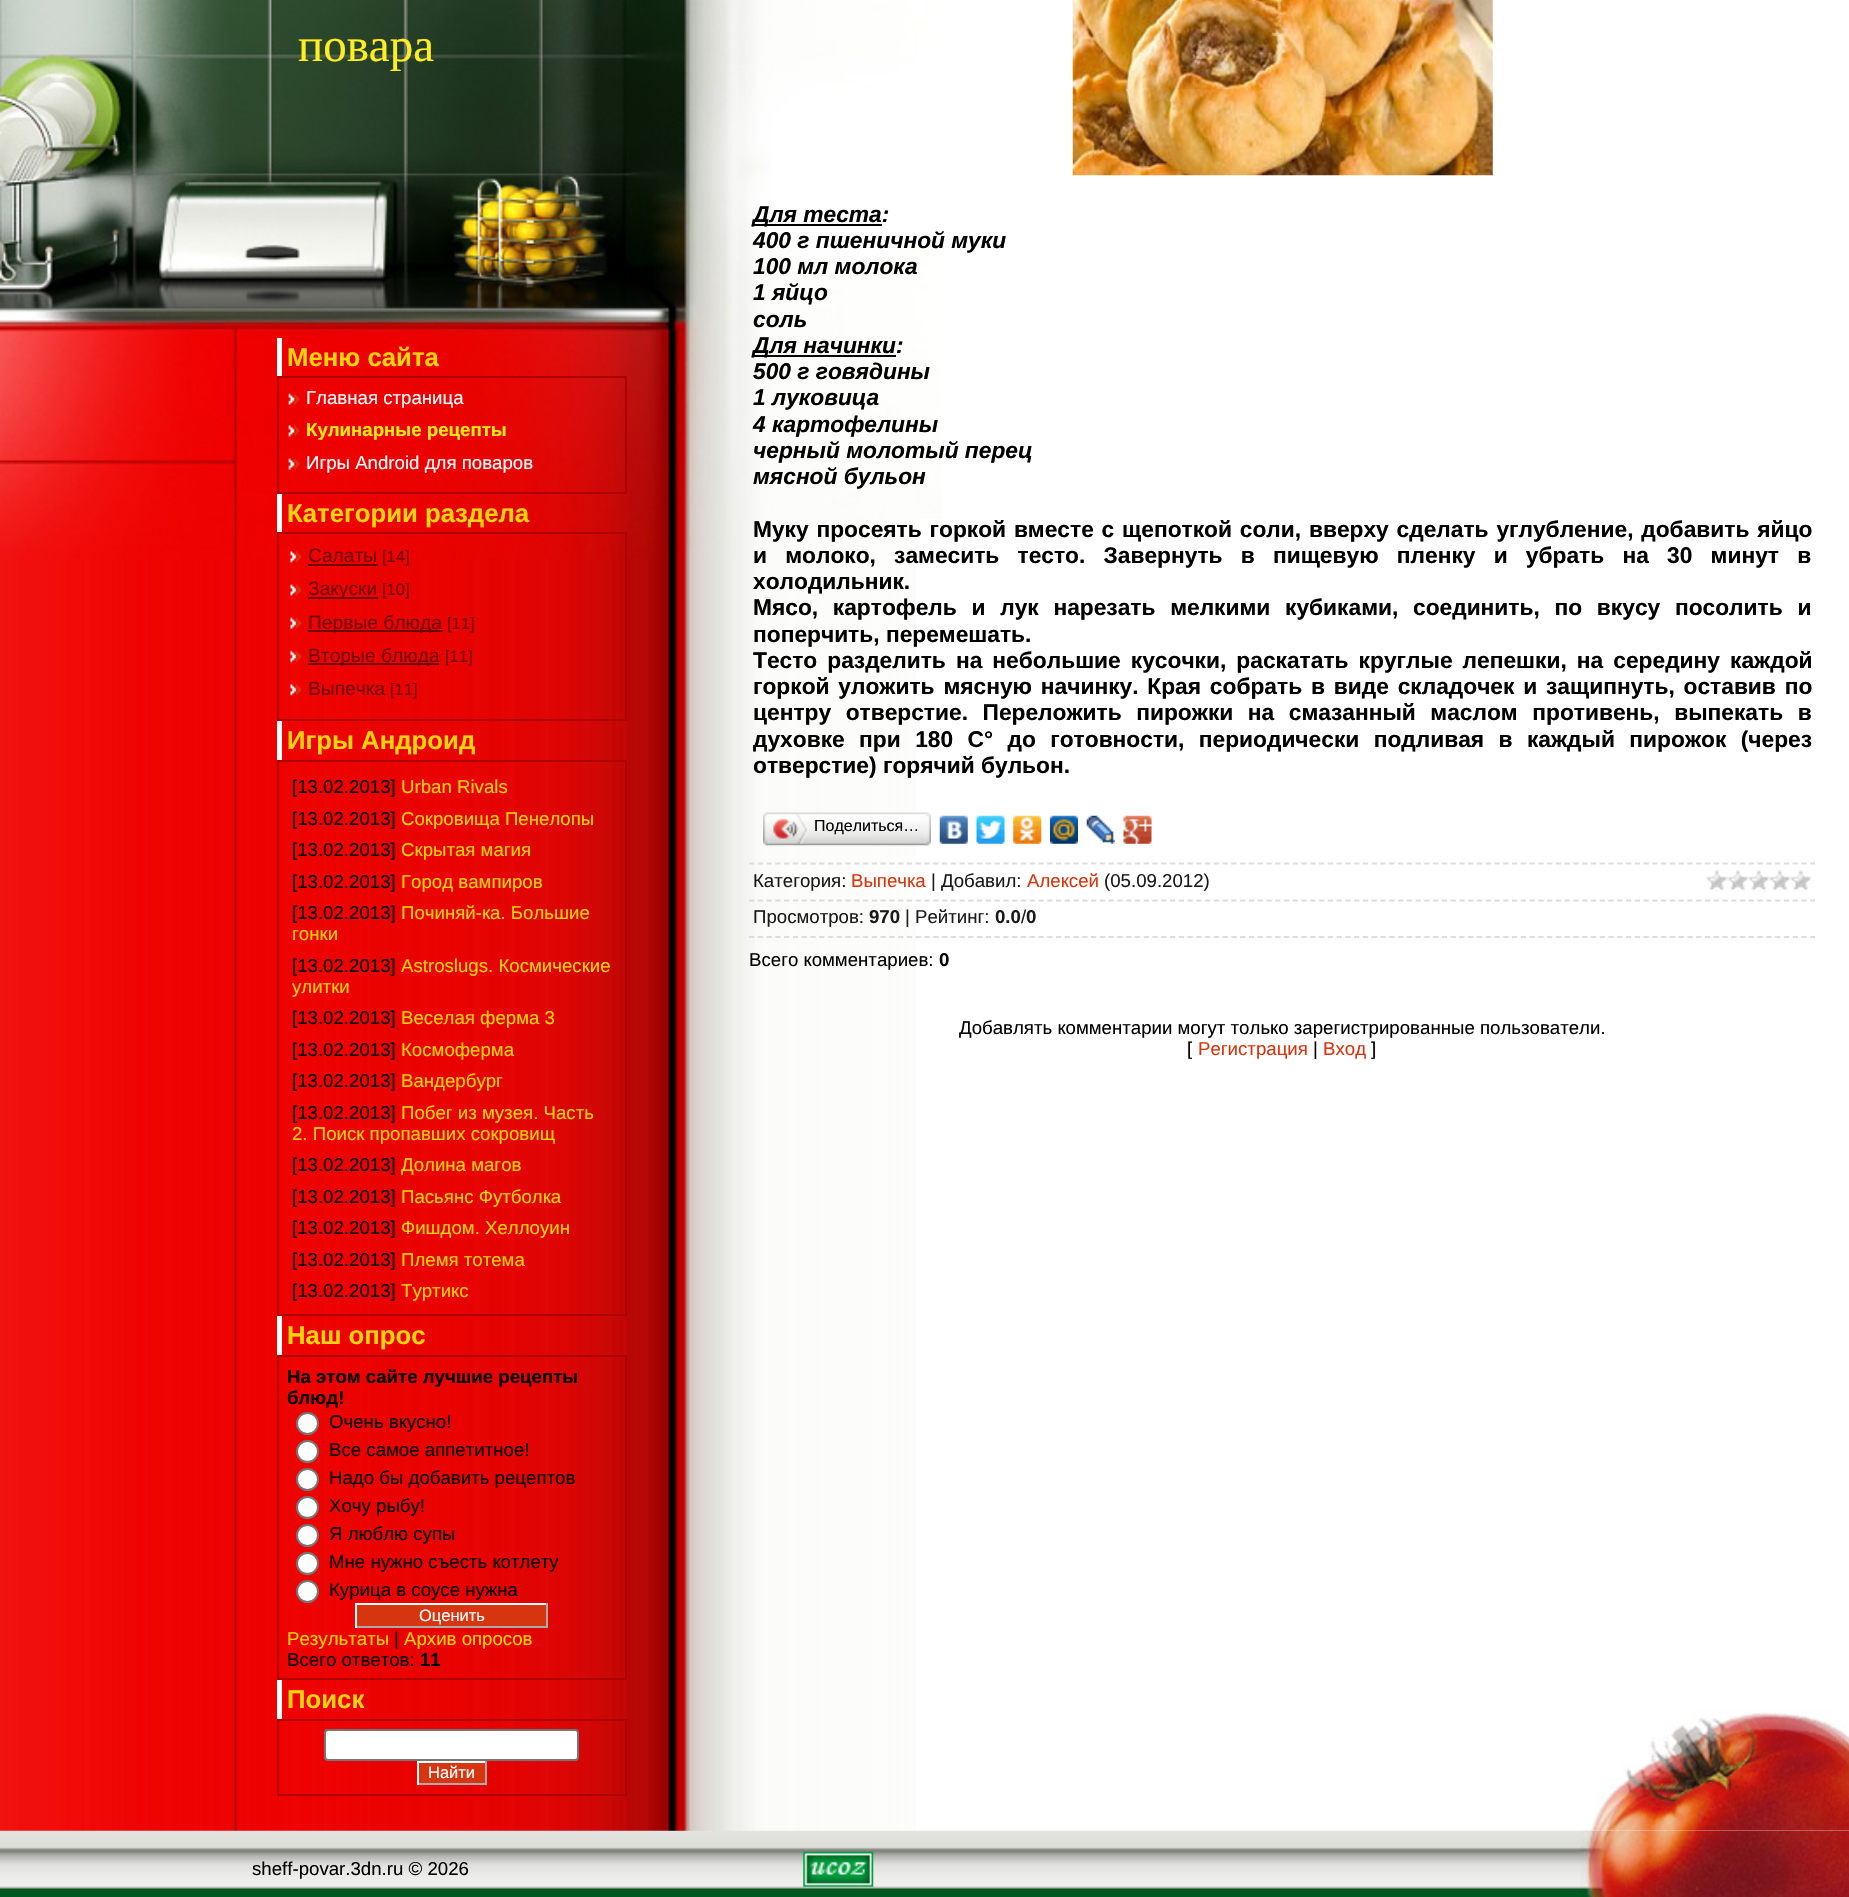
void draw(SkCanvas* canvas) {
    SkPaint paint;
    paint.setAntiAlias(true);
    auto spacedText = [&](const char* s, float x, float y, const SkFont& font, const SkPaint& ink, float letter, float word) {
        std::vector<SkGlyphID> glyphs(font.countText(s, strlen(s), SkTextEncoding::kUTF8));
        std::vector<float> xs(glyphs.size());
        font.textToGlyphs(s, strlen(s), SkTextEncoding::kUTF8, glyphs);
        font.getXPos(glyphs, xs, x);
        float extra = 0;
        for (size_t i = 0; i < glyphs.size(); i++) {
            xs[i] += extra;
            extra += letter + word * (glyphs[i] == font.unicharToGlyph(' '));
        }
        canvas->drawTextBlob(SkTextBlob::MakeFromPosHGlyphs(glyphs, xs, y, font), 0, 0, ink);
    };
    canvas->clear(0xFFFFFFFF);
    canvas->drawImageRect(SkImages::DeferredFromEncodedData(SkData::MakeFromFileName("img1.png")), SkRect::MakeXYWH(0, 0, 916, 1831), SkSamplingOptions());
    canvas->drawImageRect(SkImages::DeferredFromEncodedData(SkData::MakeFromFileName("img2.png")), SkRect::MakeXYWH(1587, 1709, 262, 122), SkSamplingOptions());
    canvas->drawImageRect(SkImages::DeferredFromEncodedData(SkData::MakeFromFileName("img3.png")), SkRect::MakeXYWH(0, 0, 732, 135), SkSamplingOptions());
    SkFont font1(fontMgr->matchFamilyStyle("Liberation Serif", SkFontStyle::Normal()), 47);
    font1.setSubpixel(true);
    paint.setColor(0xFFFFEE21);
    canvas->drawString("повара", 298, 61, font1, paint);
    canvas->drawImageRect(SkImages::DeferredFromEncodedData(SkData::MakeFromFileName("img4.png")), SkRect::MakeXYWH(0, 135, 731, 203), SkSamplingOptions());
    canvas->drawImageRect(SkImages::DeferredFromEncodedData(SkData::MakeFromFileName("img5.png")), SkRect::MakeXYWH(0, 338, 732, 220), SkSamplingOptions());
    paint.setColor(0xFFFFFFFF);
    canvas->drawRect(SkRect::MakeXYWH(277, 338, 5, 38), paint);
    SkFont font2(fontMgr->matchFamilyStyle("Liberation Sans", SkFontStyle::Bold()), 25.75f);
    font2.setSubpixel(true);
    paint.setColor(0xFFFFD40C);
    canvas->drawString("Меню сайта", 287, 366, font2, paint);
    paint.setStyle(SkPaint::kStroke_Style);
    paint.setStrokeWidth(2);
    paint.setColor(0xFFAE0200);
    canvas->drawRect(SkRect::MakeXYWH(278, 377, 348, 116), paint);
    canvas->drawImageRect(SkImages::DeferredFromEncodedData(SkData::MakeFromFileName("img6.png")), SkRect::MakeXYWH(288, 393, 12, 12), SkSamplingOptions());
    SkFont font3(fontMgr->matchFamilyStyle("Liberation Sans", SkFontStyle::Normal()), 18.65f);
    font3.setSubpixel(true);
    paint.setStyle(SkPaint::kFill_Style);
    paint.setColor(0xFFFFFFFF);
    canvas->drawString("Главная страница", 306, 404, font3, paint);
    canvas->drawImageRect(SkImages::DeferredFromEncodedData(SkData::MakeFromFileName("img7.png")), SkRect::MakeXYWH(288, 425, 12, 12), SkSamplingOptions());
    SkFont font4(fontMgr->matchFamilyStyle("Liberation Sans", SkFontStyle::Bold()), 18.65f);
    font4.setSubpixel(true);
    paint.setColor(0xFFFFED11);
    canvas->drawString("Кулинарные рецепты", 306, 436, font4, paint);
    canvas->drawImageRect(SkImages::DeferredFromEncodedData(SkData::MakeFromFileName("img8.png")), SkRect::MakeXYWH(288, 458, 12, 12), SkSamplingOptions());
    paint.setColor(0xFFFFFFFF);
    canvas->drawString("Игры Android для поваров", 306, 469, font3, paint);
    canvas->drawRect(SkRect::MakeXYWH(277, 494, 5, 38), paint);
    paint.setColor(0xFFFFD40C);
    canvas->drawString("Категории раздела", 287, 522, font2, paint);
    paint.setStyle(SkPaint::kStroke_Style);
    paint.setColor(0xFFAE0200);
    canvas->drawRect(SkRect::MakeXYWH(278, 533, 348, 187), paint);
    canvas->drawImageRect(SkImages::DeferredFromEncodedData(SkData::MakeFromFileName("img9.png")), SkRect::MakeXYWH(290, 551, 12, 12), SkSamplingOptions());
    SkFont font5(fontMgr->matchFamilyStyle("Liberation Sans", SkFontStyle::Normal()), 19.25f);
    font5.setSubpixel(true);
    paint.setStyle(SkPaint::kFill_Style);
    paint.setColor(0xFF6D0100);
    canvas->drawString("Салаты", 308, 562, font5, paint);
    canvas->drawRect(SkRect::MakeXYWH(308, 564, 70, 2), paint);
    SkFont font6(fontMgr->matchFamilyStyle("Liberation Sans", SkFontStyle::Normal()), 16.5f);
    font6.setSubpixel(true);
    canvas->drawString("[14]", 382, 562, font6, paint);
    canvas->drawImageRect(SkImages::DeferredFromEncodedData(SkData::MakeFromFileName("img10.png")), SkRect::MakeXYWH(290, 584, 12, 12), SkSamplingOptions());
    canvas->drawRect(SkRect::MakeXYWH(308, 597, 70, 2), paint);
    canvas->drawString("Закуски", 308, 595, font5, paint);
    canvas->drawString("[10]", 382, 595, font6, paint);
    canvas->drawImageRect(SkImages::DeferredFromEncodedData(SkData::MakeFromFileName("img11.png")), SkRect::MakeXYWH(290, 617, 12, 12), SkSamplingOptions());
    canvas->drawRect(SkRect::MakeXYWH(308, 630, 135, 2), paint);
    canvas->drawString("Первые блюда", 308, 629, font5, paint);
    canvas->drawString("[11]", 447, 629, font6, paint);
    canvas->drawImageRect(SkImages::DeferredFromEncodedData(SkData::MakeFromFileName("img12.png")), SkRect::MakeXYWH(290, 650, 12, 13), SkSamplingOptions());
    canvas->drawRect(SkRect::MakeXYWH(308, 663, 131, 2), paint);
    canvas->drawString("Вторые блюда", 308, 662, font5, paint);
    canvas->drawString("[11]", 445, 662, font6, paint);
    canvas->drawImageRect(SkImages::DeferredFromEncodedData(SkData::MakeFromFileName("img13.png")), SkRect::MakeXYWH(290, 684, 12, 12), SkSamplingOptions());
    canvas->drawString("Выпечка", 308, 695, font5, paint);
    canvas->drawString("[11]", 390, 695, font6, paint);
    paint.setColor(0xFFFFFFFF);
    canvas->drawRect(SkRect::MakeXYWH(277, 721, 5, 39), paint);
    paint.setColor(0xFFFFD40C);
    canvas->drawString("Игры Андроид", 287, 749, font2, paint);
    paint.setStyle(SkPaint::kStroke_Style);
    paint.setColor(0xFFAE0200);
    canvas->drawRect(SkRect::MakeXYWH(278, 761, 348, 554), paint);
    paint.setStyle(SkPaint::kFill_Style);
    paint.setColor(0xFF000000);
    canvas->drawString("[13.02.2013]", 292, 793, font3, paint);
    paint.setColor(0xFFFFD40C);
    canvas->drawString("Urban Rivals", 401, 793, font3, paint);
    paint.setColor(0xFF000000);
    canvas->drawString("[13.02.2013]", 292, 825, font3, paint);
    paint.setColor(0xFFFFD40C);
    canvas->drawString("Сокровища Пенелопы", 401, 825, font3, paint);
    paint.setColor(0xFF000000);
    canvas->drawString("[13.02.2013]", 292, 856, font3, paint);
    paint.setColor(0xFFFFD40C);
    canvas->drawString("Скрытая магия", 401, 856, font3, paint);
    paint.setColor(0xFF000000);
    canvas->drawString("[13.02.2013]", 292, 888, font3, paint);
    paint.setColor(0xFFFFD40C);
    canvas->drawString("Город вампиров", 401, 888, font3, paint);
    paint.setColor(0xFF000000);
    canvas->drawString("[13.02.2013]", 292, 919, font3, paint);
    paint.setColor(0xFFFFD40C);
    canvas->drawString("Починяй-ка. Большие", 401, 919, font3, paint);
    canvas->drawString("гонки", 292, 940, font3, paint);
    paint.setColor(0xFF000000);
    canvas->drawString("[13.02.2013]", 292, 972, font3, paint);
    paint.setColor(0xFFFFD40C);
    canvas->drawString("Astroslugs. Космические", 401, 972, font3, paint);
    canvas->drawString("улитки", 292, 993, font3, paint);
    paint.setColor(0xFF000000);
    canvas->drawString("[13.02.2013]", 292, 1024, font3, paint);
    paint.setColor(0xFFFFD40C);
    canvas->drawString("Веселая ферма 3", 401, 1024, font3, paint);
    paint.setColor(0xFF000000);
    canvas->drawString("[13.02.2013]", 292, 1056, font3, paint);
    paint.setColor(0xFFFFD40C);
    canvas->drawString("Космоферма", 401, 1056, font3, paint);
    paint.setColor(0xFF000000);
    canvas->drawString("[13.02.2013]", 292, 1087, font3, paint);
    paint.setColor(0xFFFFD40C);
    canvas->drawString("Вандербург", 401, 1087, font3, paint);
    paint.setColor(0xFF000000);
    canvas->drawString("[13.02.2013]", 292, 1119, font3, paint);
    paint.setColor(0xFFFFD40C);
    canvas->drawString("Побег из музея. Часть", 401, 1119, font3, paint);
    canvas->drawString("2. Поиск пропавших сокровищ", 292, 1140, font3, paint);
    paint.setColor(0xFF000000);
    canvas->drawString("[13.02.2013]", 292, 1171, font3, paint);
    paint.setColor(0xFFFFD40C);
    canvas->drawString("Долина магов", 401, 1171, font3, paint);
    paint.setColor(0xFF000000);
    canvas->drawString("[13.02.2013]", 292, 1203, font3, paint);
    paint.setColor(0xFFFFD40C);
    canvas->drawString("Пасьянс Футболка", 401, 1203, font3, paint);
    paint.setColor(0xFF000000);
    canvas->drawString("[13.02.2013]", 292, 1234, font3, paint);
    paint.setColor(0xFFFFD40C);
    canvas->drawString("Фишдом. Хеллоуин", 401, 1234, font3, paint);
    paint.setColor(0xFF000000);
    canvas->drawString("[13.02.2013]", 292, 1266, font3, paint);
    paint.setColor(0xFFFFD40C);
    canvas->drawString("Племя тотема", 401, 1266, font3, paint);
    paint.setColor(0xFF000000);
    canvas->drawString("[13.02.2013]", 292, 1297, font3, paint);
    paint.setColor(0xFFFFD40C);
    canvas->drawString("Туртикс", 401, 1297, font3, paint);
    paint.setColor(0xFFFFFFFF);
    canvas->drawRect(SkRect::MakeXYWH(277, 1316, 5, 39), paint);
    paint.setColor(0xFFFFD40C);
    canvas->drawString("Наш опрос", 287, 1344, font2, paint);
    paint.setStyle(SkPaint::kStroke_Style);
    paint.setColor(0xFFAE0200);
    canvas->drawRect(SkRect::MakeXYWH(278, 1356, 348, 323), paint);
    paint.setStyle(SkPaint::kFill_Style);
    paint.setColor(0xFF000000);
    canvas->drawString("На этом сайте лучшие рецепты", 287, 1383, font4, paint);
    canvas->drawString("блюд!", 287, 1404, font4, paint);
    paint.setColor(0xFFFFFFFF);
    canvas->drawCircle(307.5f, 1423.5f, 10.5f, paint);
    paint.setStyle(SkPaint::kStroke_Style);
    paint.setColor(0xFF767676);
    canvas->drawCircle(307.5f, 1423.5f, 10.5f, paint);
    paint.setStyle(SkPaint::kFill_Style);
    paint.setColor(0xFF000000);
    canvas->drawString("Очень вкусно!", 329, 1428, font3, paint);
    paint.setColor(0xFFFFFFFF);
    canvas->drawCircle(307.5f, 1451.5f, 10.5f, paint);
    paint.setStyle(SkPaint::kStroke_Style);
    paint.setColor(0xFF767676);
    canvas->drawCircle(307.5f, 1451.5f, 10.5f, paint);
    paint.setStyle(SkPaint::kFill_Style);
    paint.setColor(0xFF000000);
    canvas->drawString("Все самое аппетитное!", 329, 1456, font3, paint);
    paint.setColor(0xFFFFFFFF);
    canvas->drawCircle(307.5f, 1479.5f, 10.5f, paint);
    paint.setStyle(SkPaint::kStroke_Style);
    paint.setColor(0xFF767676);
    canvas->drawCircle(307.5f, 1479.5f, 10.5f, paint);
    paint.setStyle(SkPaint::kFill_Style);
    paint.setColor(0xFF000000);
    canvas->drawString("Надо бы добавить рецептов", 329, 1484, font3, paint);
    paint.setColor(0xFFFFFFFF);
    canvas->drawCircle(307.5f, 1507.5f, 10.5f, paint);
    paint.setStyle(SkPaint::kStroke_Style);
    paint.setColor(0xFF767676);
    canvas->drawCircle(307.5f, 1507.5f, 10.5f, paint);
    paint.setStyle(SkPaint::kFill_Style);
    paint.setColor(0xFF000000);
    canvas->drawString("Хочу рыбу!", 329, 1512, font3, paint);
    paint.setColor(0xFFFFFFFF);
    canvas->drawCircle(307.5f, 1535.5f, 10.5f, paint);
    paint.setStyle(SkPaint::kStroke_Style);
    paint.setColor(0xFF767676);
    canvas->drawCircle(307.5f, 1535.5f, 10.5f, paint);
    paint.setStyle(SkPaint::kFill_Style);
    paint.setColor(0xFF000000);
    canvas->drawString("Я люблю супы", 329, 1540, font3, paint);
    paint.setColor(0xFFFFFFFF);
    canvas->drawCircle(307.5f, 1563.5f, 10.5f, paint);
    paint.setStyle(SkPaint::kStroke_Style);
    paint.setColor(0xFF767676);
    canvas->drawCircle(307.5f, 1563.5f, 10.5f, paint);
    paint.setStyle(SkPaint::kFill_Style);
    paint.setColor(0xFF000000);
    canvas->drawString("Мне нужно съесть котлету", 329, 1568, font3, paint);
    paint.setColor(0xFFFFFFFF);
    canvas->drawCircle(307.5f, 1591.5f, 10.5f, paint);
    paint.setStyle(SkPaint::kStroke_Style);
    paint.setColor(0xFF767676);
    canvas->drawCircle(307.5f, 1591.5f, 10.5f, paint);
    paint.setStyle(SkPaint::kFill_Style);
    paint.setColor(0xFF000000);
    canvas->drawString("Курица в соусе нужна", 329, 1596, font3, paint);
    paint.setColor(0xFFD7350F);
    canvas->drawRect(SkRect::MakeXYWH(357, 1605, 189, 21), paint);
    paint.setColor(0xFFFFFFFF);
    canvas->drawRect(SkRect::MakeXYWH(355, 1603, 193, 2), paint);
    paint.setColor(0xFFAAAAAA);
    canvas->drawRect(SkRect::MakeXYWH(546, 1603, 2, 25), paint);
    canvas->drawRect(SkRect::MakeXYWH(355, 1626, 193, 2), paint);
    paint.setColor(0xFFFFFFFF);
    canvas->drawRect(SkRect::MakeXYWH(355, 1603, 2, 25), paint);
    canvas->drawString("Оценить", 419, 1621, font6, paint);
    paint.setColor(0xFFFFD40C);
    canvas->drawString("Результаты", 287, 1645, font3, paint);
    paint.setColor(0xFF000000);
    canvas->drawString("|", 394, 1645, font3, paint);
    paint.setColor(0xFFFFD40C);
    canvas->drawString("Архив опросов", 404, 1645, font3, paint);
    paint.setColor(0xFF000000);
    canvas->drawString("Всего ответов:", 287, 1666, font3, paint);
    canvas->drawString("11", 420, 1666, font4, paint);
    paint.setColor(0xFFFFFFFF);
    canvas->drawRect(SkRect::MakeXYWH(277, 1680, 5, 39), paint);
    paint.setColor(0xFFFFD40C);
    canvas->drawString("Поиск", 287, 1708, font2, paint);
    paint.setStyle(SkPaint::kStroke_Style);
    paint.setColor(0xFFAE0200);
    canvas->drawRect(SkRect::MakeXYWH(278, 1720, 348, 75), paint);
    paint.setStyle(SkPaint::kFill_Style);
    paint.setColor(0xFFFFFFFF);
    canvas->drawRoundRect(SkRect::MakeXYWH(325, 1730, 253, 30), 3, 3, paint);
    paint.setStyle(SkPaint::kStroke_Style);
    paint.setColor(0xFF767676);
    canvas->drawRoundRect(SkRect::MakeXYWH(325, 1730, 253, 30), 3, 3, paint);
    paint.setStyle(SkPaint::kFill_Style);
    paint.setColor(0xFFD7350F);
    canvas->drawRect(SkRect::MakeXYWH(419, 1763, 66, 20), paint);
    paint.setColor(0xFFFFFFFF);
    canvas->drawRect(SkRect::MakeXYWH(417, 1761, 70, 2), paint);
    paint.setColor(0xFFAAAAAA);
    canvas->drawRect(SkRect::MakeXYWH(485, 1761, 2, 24), paint);
    canvas->drawRect(SkRect::MakeXYWH(417, 1783, 70, 2), paint);
    paint.setColor(0xFFFFFFFF);
    canvas->drawRect(SkRect::MakeXYWH(417, 1761, 2, 24), paint);
    canvas->drawString("Найти", 428, 1778, font6, paint);
    canvas->drawImageRect(SkImages::DeferredFromEncodedData(SkData::MakeFromFileName("img14.png")), SkRect::MakeXYWH(731, 0, 211, 519), SkSamplingOptions());
    canvas->drawImageRect(SkImages::DeferredFromEncodedData(SkData::MakeFromFileName("img15.png")), SkRect::MakeXYWH(1072, 0, 421, 176), SkSamplingOptions());
    paint.setColor(0xFF000000);
    canvas->drawRect(SkRect::MakeXYWH(753, 224, 129, 2), paint);
    SkFont font7(fontMgr->matchFamilyStyle("Liberation Sans", SkFontStyle::BoldItalic()), 22.75f);
    font7.setSubpixel(true);
    canvas->drawString("Для теста:", 753, 222, font7, paint);
    canvas->drawString("400 г пшеничной муки", 753, 248, font7, paint);
    canvas->drawString("100 мл молока", 753, 274, font7, paint);
    canvas->drawString("1 яйцо", 753, 300, font7, paint);
    canvas->drawString("соль", 753, 327, font7, paint);
    canvas->drawRect(SkRect::MakeXYWH(753, 355, 143, 2), paint);
    canvas->drawString("Для начинки:", 753, 353, font7, paint);
    canvas->drawString("500 г говядины", 753, 379, font7, paint);
    canvas->drawString("1 луковица", 753, 405, font7, paint);
    canvas->drawString("4 картофелины", 753, 432, font7, paint);
    canvas->drawString("черный молотый перец", 753, 458, font7, paint);
    canvas->drawString("мясной бульон", 753, 484, font7, paint);
    SkFont font8(fontMgr->matchFamilyStyle("Liberation Sans", SkFontStyle::Bold()), 22.75f);
    font8.setSubpixel(true);
    spacedText("Муку просеять горкой вместе с щепоткой соли, вверху сделать углубление, добавить яйцо", 753, 537, font8, paint, 0, 1.5f);
    spacedText("и молоко, замесить тесто. Завернуть в пищевую пленку и убрать на 30 минут в", 753, 563, font8, paint, 0, 11.9f);
    canvas->drawString("холодильник.", 753, 589, font8, paint);
    spacedText("Мясо, картофель и лук нарезать мелкими кубиками, соединить, по вкусу посолить и", 753, 615, font8, paint, 0, 8.4f);
    canvas->drawString("поперчить, перемешать.", 753, 642, font8, paint);
    spacedText("Тесто разделить на небольшие кусочки, раскатать круглые лепешки, на середину каждой", 753, 668, font8, paint, 0, 3.75f);
    spacedText("горкой уложить мясную начинку. Края собрать в виде складочек и защипнуть, оставив по", 753, 694, font8, paint, 0, 2.5f);
    spacedText("центру отверстие. Переложить пирожки на смазанный маслом противень, выпекать в", 753, 720, font8, paint, 0, 8.25f);
    spacedText("духовке при 180 С° до готовности, периодически подливая в каждый пирожок (через", 753, 747, font8, paint, 0, 8.1f);
    canvas->drawString("отверстие) горячий бульон.", 753, 773, font8, paint);
    canvas->drawImageRect(SkImages::DeferredFromEncodedData(SkData::MakeFromFileName("img16.png")), SkRect::MakeXYWH(768, 812, 158, 34), SkSamplingOptions());
    canvas->drawImageRect(SkImages::DeferredFromEncodedData(SkData::MakeFromFileName("img17.png")), SkRect::MakeXYWH(763, 812, 6, 34), SkSamplingOptions());
    canvas->drawImageRect(SkImages::DeferredFromEncodedData(SkData::MakeFromFileName("img18.png")), SkRect::MakeXYWH(773, 814, 36, 30), SkSamplingOptions());
    SkFont font9(fontMgr->matchFamilyStyle("Liberation Sans", SkFontStyle::Normal()), 16);
    font9.setSubpixel(true);
    canvas->drawString("Поделиться…", 814, 831, font9, paint);
    canvas->drawImageRect(SkImages::DeferredFromEncodedData(SkData::MakeFromFileName("img19.png")), SkRect::MakeXYWH(925, 812, 6, 34), SkSamplingOptions());
    canvas->drawImageRect(SkImages::DeferredFromEncodedData(SkData::MakeFromFileName("img20.png")), SkRect::MakeXYWH(939, 815, 29, 29), SkSamplingOptions());
    canvas->drawImageRect(SkImages::DeferredFromEncodedData(SkData::MakeFromFileName("img21.png")), SkRect::MakeXYWH(976, 815, 29, 29), SkSamplingOptions());
    canvas->drawImageRect(SkImages::DeferredFromEncodedData(SkData::MakeFromFileName("img22.png")), SkRect::MakeXYWH(1013, 815, 29, 29), SkSamplingOptions());
    canvas->drawImageRect(SkImages::DeferredFromEncodedData(SkData::MakeFromFileName("img23.png")), SkRect::MakeXYWH(1050, 815, 28, 29), SkSamplingOptions());
    canvas->drawImageRect(SkImages::DeferredFromEncodedData(SkData::MakeFromFileName("img24.png")), SkRect::MakeXYWH(1086, 815, 29, 29), SkSamplingOptions());
    canvas->drawImageRect(SkImages::DeferredFromEncodedData(SkData::MakeFromFileName("img25.png")), SkRect::MakeXYWH(1123, 815, 29, 29), SkSamplingOptions());
    paint.setStyle(SkPaint::kStroke_Style);
    paint.setStrokeWidth(1.8f);
    paint.setColor(0xFFDDDDDD);
    paint.setPathEffect(SkDashPathEffect::Make({{5.25f, 3.52f}}, 0));
    canvas->drawPath(SkPathBuilder().moveTo(749, 863.5f).lineTo(1815, 863.5f).detach(), paint);
    paint.setPathEffect(nullptr);
    paint.setPathEffect(SkDashPathEffect::Make({{5.25f, 3.52f}}, 0));
    canvas->drawPath(SkPathBuilder().moveTo(749, 900.5f).lineTo(1815, 900.5f).detach(), paint);
    paint.setPathEffect(nullptr);
    paint.setStyle(SkPaint::kFill_Style);
    paint.setColor(0xFF1A1A1A);
    canvas->drawString("Категория:", 753, 887, font3, paint);
    paint.setColor(0xFFD7350F);
    canvas->drawString("Выпечка", 851, 887, font3, paint);
    paint.setColor(0xFF1A1A1A);
    canvas->drawString("| Добавил:", 931, 887, font3, paint);
    paint.setColor(0xFFD7350F);
    canvas->drawString("Алексей", 1027, 887, font3, paint);
    paint.setColor(0xFF1A1A1A);
    canvas->drawString("(05.09.2012)", 1104, 887, font3, paint);
    canvas->drawImageRect(SkImages::DeferredFromEncodedData(SkData::MakeFromFileName("img26.png")), SkRect::MakeXYWH(1706, 870, 106, 21), SkSamplingOptions());
    paint.setStyle(SkPaint::kStroke_Style);
    paint.setColor(0xFFDDDDDD);
    paint.setPathEffect(SkDashPathEffect::Make({{5.25f, 3.52f}}, 0));
    canvas->drawPath(SkPathBuilder().moveTo(749, 937).lineTo(1815, 937).detach(), paint);
    paint.setPathEffect(nullptr);
    paint.setStyle(SkPaint::kFill_Style);
    paint.setColor(0xFF1A1A1A);
    canvas->drawString("970", 869, 923, font4, paint);
    canvas->drawString("| Рейтинг:", 905, 923, font3, paint);
    canvas->drawString("0.0 0", 995, 923, font4, paint);
    canvas->drawString("Просмотров:", 753, 923, font3, paint);
    canvas->drawString("/", 1021, 923, font3, paint);
    paint.setColor(0xFF000000);
    canvas->drawString("Всего комментариев:", 749, 966, font3, paint);
    canvas->drawString("0", 939, 966, font4, paint);
    canvas->drawString("Добавлять комментарии могут только зарегистрированные пользователи.", 959, 1034, font3, paint);
    canvas->drawString("[", 1187, 1055, font3, paint);
    paint.setColor(0xFFD7350F);
    canvas->drawString("Регистрация", 1198, 1055, font3, paint);
    paint.setColor(0xFF000000);
    canvas->drawString("|", 1313, 1055, font3, paint);
    paint.setColor(0xFFD7350F);
    canvas->drawString("Вход", 1323, 1055, font3, paint);
    paint.setColor(0xFF000000);
    canvas->drawString("]", 1371, 1055, font3, paint);
    paint.setColor(0xFF045820);
    canvas->drawRect(SkRect::MakeXYWH(0, 1889, 1581, 8), paint);
    canvas->drawImageRect(SkImages::DeferredFromEncodedData(SkData::MakeFromFileName("img27.png")), SkRect::MakeXYWH(0, 1830, 1849, 59), SkSamplingOptions());
    paint.setColor(0xFF000000);
    canvas->drawString("sheff-povar.3dn.ru © 2026", 252, 1875, font3, paint);
    canvas->drawImageRect(SkImages::DeferredFromEncodedData(SkData::MakeFromFileName("img28.png")), SkRect::MakeXYWH(803, 1851, 71, 36), SkSamplingOptions());
    canvas->drawImageRect(SkImages::DeferredFromEncodedData(SkData::MakeFromFileName("img29.png")), SkRect::MakeXYWH(1580, 1830, 269, 67), SkSamplingOptions());
}
